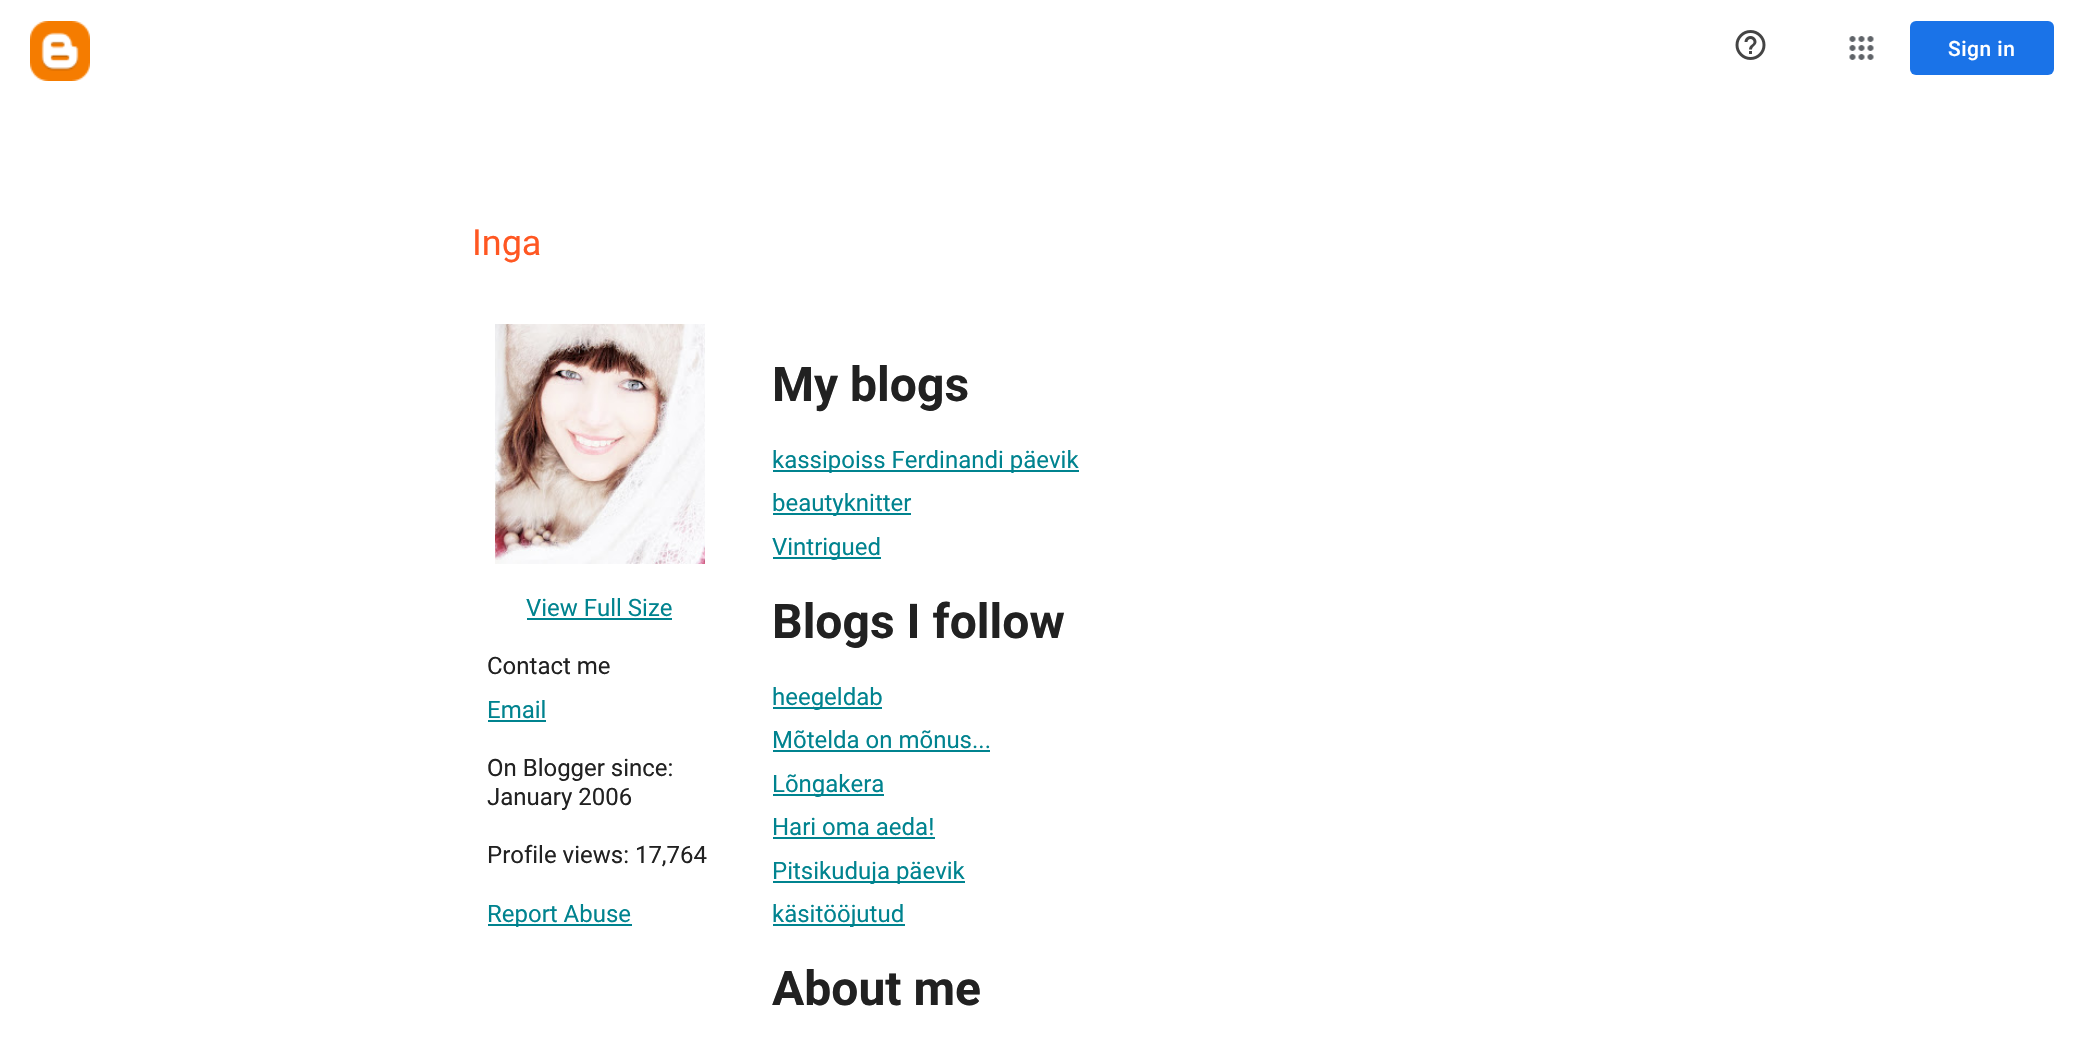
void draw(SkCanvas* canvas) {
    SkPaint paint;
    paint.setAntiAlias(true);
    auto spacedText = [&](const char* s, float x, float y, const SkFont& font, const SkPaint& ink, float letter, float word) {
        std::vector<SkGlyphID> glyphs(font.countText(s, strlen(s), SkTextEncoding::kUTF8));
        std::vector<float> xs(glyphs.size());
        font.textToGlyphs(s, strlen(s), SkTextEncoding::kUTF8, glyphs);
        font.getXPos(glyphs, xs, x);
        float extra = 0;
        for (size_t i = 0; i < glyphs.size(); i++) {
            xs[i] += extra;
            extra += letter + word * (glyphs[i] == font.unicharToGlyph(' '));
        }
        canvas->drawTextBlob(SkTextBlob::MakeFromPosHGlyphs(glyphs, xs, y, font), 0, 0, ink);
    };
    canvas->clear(0xFFFFFFFF);
    canvas->drawImageRect(SkImages::DeferredFromEncodedData(SkData::MakeFromFileName("img1.png")), SkRect::MakeXYWH(30, 21, 60, 60), SkSamplingOptions());
    canvas->drawImageRect(SkImages::DeferredFromEncodedData(SkData::MakeFromFileName("img2.png")), SkRect::MakeXYWH(1735, 30, 31, 30), SkSamplingOptions());
    canvas->drawImageRect(SkImages::DeferredFromEncodedData(SkData::MakeFromFileName("img3.png")), SkRect::MakeXYWH(1849, 36, 25, 24), SkSamplingOptions());
    paint.setColor(0xFF1A73E8);
    canvas->drawRoundRect(SkRect::MakeXYWH(1910, 21, 144, 54), 6, 6, paint);
    SkFont font1(fontMgr->matchFamilyStyle("Roboto", SkFontStyle(500, SkFontStyle::kNormal_Width, SkFontStyle::kUpright_Slant)), 21);
    font1.setSubpixel(true);
    paint.setColor(0xFFFFFFFF);
    spacedText("Sign in", 1948, 56, font1, paint, 0.5f, 0);
    SkFont font2(fontMgr->matchFamilyStyle("Roboto", SkFontStyle::Normal()), 36);
    font2.setSubpixel(true);
    paint.setColor(0xFFFF5722);
    canvas->drawString("Inga", 472, 255, font2, paint);
    canvas->drawImageRect(SkImages::DeferredFromEncodedData(SkData::MakeFromFileName("img4.png")), SkRect::MakeXYWH(495, 324, 210, 240), SkSamplingOptions());
    SkFont font3(fontMgr->matchFamilyStyle("Roboto", SkFontStyle::Normal()), 24);
    font3.setSubpixel(true);
    paint.setColor(0xFF00838F);
    canvas->drawString("View Full Size", 526, 616, font3, paint);
    canvas->drawRect(SkRect::MakeXYWH(527, 618, 145, 2), paint);
    paint.setColor(0xFF212121);
    canvas->drawString("Contact me", 487, 674, font3, paint);
    paint.setColor(0xFF00838F);
    canvas->drawString("Email", 487, 718, font3, paint);
    canvas->drawRect(SkRect::MakeXYWH(488, 720, 58, 2), paint);
    paint.setColor(0xFF212121);
    canvas->drawString("On Blogger since:", 487, 776, font3, paint);
    canvas->drawString("January 2006", 487, 805, font3, paint);
    canvas->drawString("Profile views: 17,764", 487, 863, font3, paint);
    paint.setColor(0xFF00838F);
    canvas->drawRect(SkRect::MakeXYWH(488, 924, 144, 2), paint);
    canvas->drawString("Report Abuse", 487, 922, font3, paint);
    SkFont font4(fontMgr->matchFamilyStyle("Roboto", SkFontStyle::Bold()), 48);
    font4.setSubpixel(true);
    paint.setColor(0xFF212121);
    canvas->drawString("My blogs", 772, 401, font4, paint);
    paint.setColor(0xFF00838F);
    canvas->drawRect(SkRect::MakeXYWH(773, 470, 306, 2), paint);
    canvas->drawString("kassipoiss Ferdinandi päevik", 772, 468, font3, paint);
    canvas->drawRect(SkRect::MakeXYWH(773, 513, 138, 2), paint);
    canvas->drawString("beautyknitter", 772, 511, font3, paint);
    canvas->drawRect(SkRect::MakeXYWH(773, 557, 108, 2), paint);
    canvas->drawString("Vintrigued", 772, 555, font3, paint);
    paint.setColor(0xFF212121);
    canvas->drawString("Blogs I follow", 772, 638, font4, paint);
    paint.setColor(0xFF00838F);
    canvas->drawRect(SkRect::MakeXYWH(773, 707, 109, 2), paint);
    canvas->drawString("heegeldab", 772, 705, font3, paint);
    canvas->drawString("Mõtelda on mõnus...", 772, 748, font3, paint);
    canvas->drawRect(SkRect::MakeXYWH(773, 750, 217, 2), paint);
    canvas->drawRect(SkRect::MakeXYWH(773, 794, 111, 2), paint);
    canvas->drawString("Lõngakera", 772, 792, font3, paint);
    canvas->drawString("Hari oma aeda!", 772, 835, font3, paint);
    canvas->drawRect(SkRect::MakeXYWH(773, 837, 162, 2), paint);
    canvas->drawRect(SkRect::MakeXYWH(773, 881, 192, 2), paint);
    canvas->drawString("Pitsikuduja päevik", 772, 879, font3, paint);
    canvas->drawRect(SkRect::MakeXYWH(773, 924, 132, 2), paint);
    canvas->drawString("käsitööjutud", 772, 922, font3, paint);
    paint.setColor(0xFF212121);
    canvas->drawString("About me", 772, 1005, font4, paint);
}
